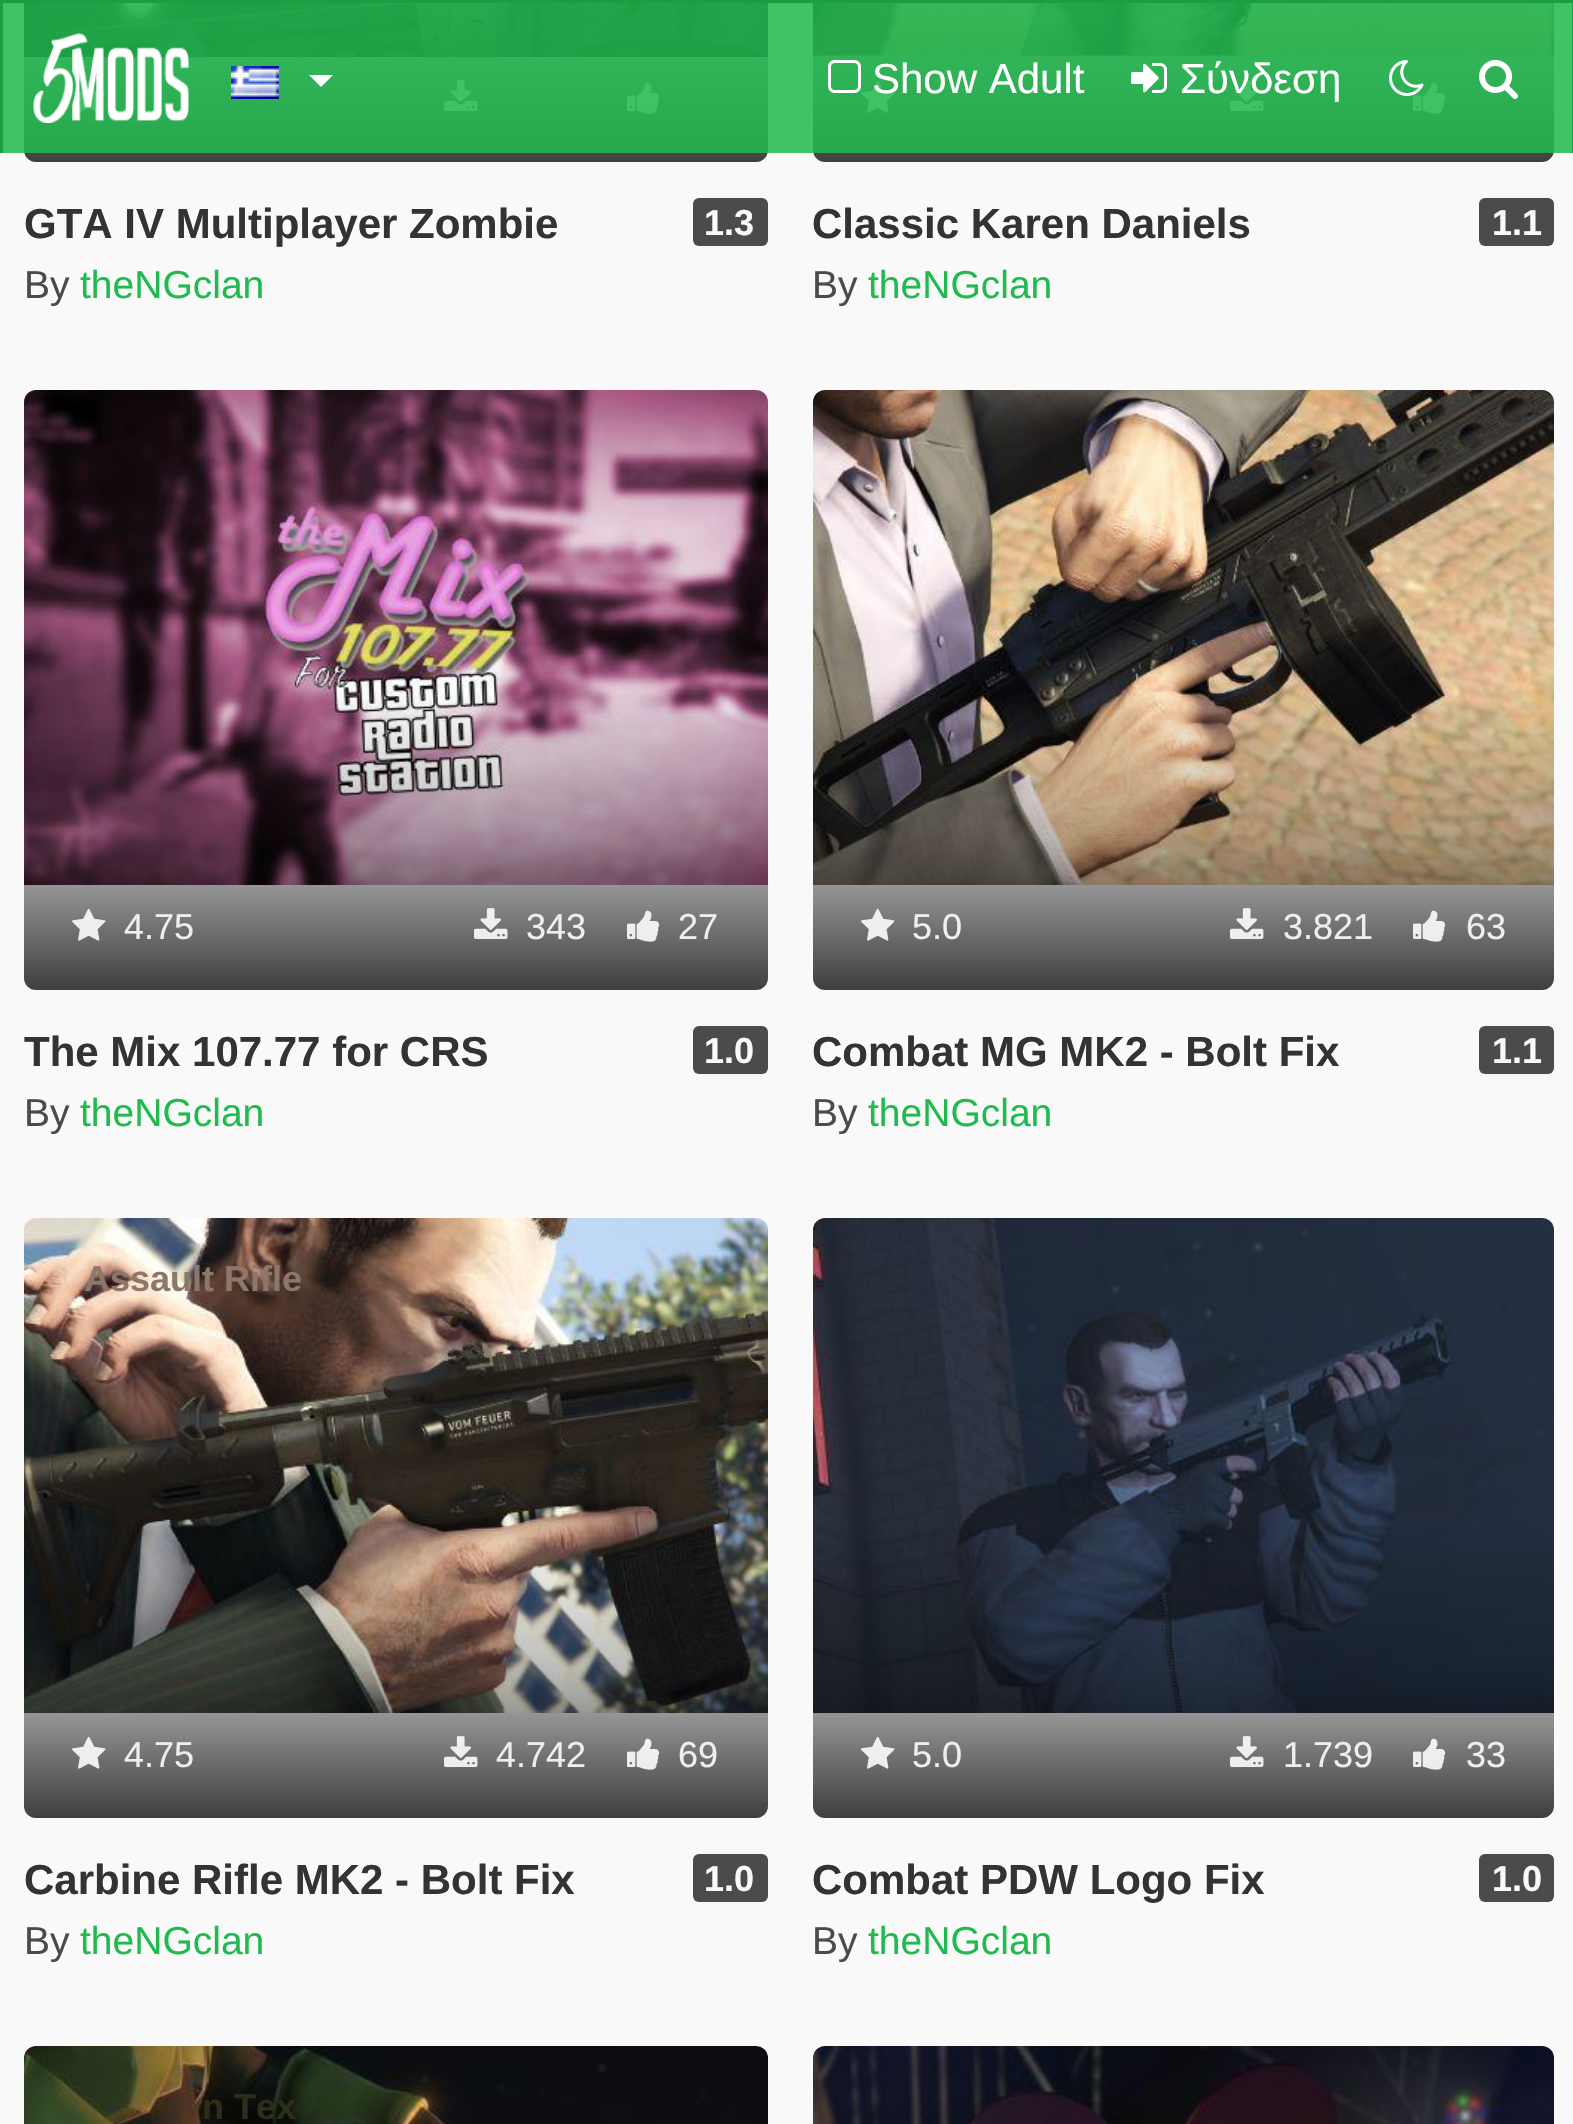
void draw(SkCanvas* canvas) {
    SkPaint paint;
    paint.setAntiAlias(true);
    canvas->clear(0xFFF9F9F9);
    canvas->drawImageRect(SkImages::DeferredFromEncodedData(SkData::MakeFromFileName("img7.png")), SkRect::MakeXYWH(24, 3, 744, 54), SkSamplingOptions());
    {
        const SkColor colors[] = {0x00000000, 0x40000000, 0xBF000000};
        const float stops[] = {0.5f, 0.75f, 1};
        const SkPoint ends[] = {{396, -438}, {396, 162}};
        paint.setShader(SkGradientShader::MakeLinear(ends, colors, stops, 3, SkTileMode::kClamp));
        paint.setAlpha(255);
    }
    canvas->drawRoundRect(SkRect::MakeXYWH(24, -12, 744, 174), 12, 12, paint);
    canvas->drawImageRect(SkImages::DeferredFromEncodedData(SkData::MakeFromFileName("img8.png")), SkRect::MakeXYWH(72, 80, 34, 33), SkSamplingOptions());
    canvas->drawImageRect(SkImages::DeferredFromEncodedData(SkData::MakeFromFileName("img9.png")), SkRect::MakeXYWH(444, 80, 34, 31), SkSamplingOptions());
    canvas->drawImageRect(SkImages::DeferredFromEncodedData(SkData::MakeFromFileName("img10.png")), SkRect::MakeXYWH(627, 82, 33, 32), SkSamplingOptions());
    canvas->drawImageRect(SkImages::DeferredFromEncodedData(SkData::MakeFromFileName("img11.png")), SkRect::MakeXYWH(813, 3, 741, 54), SkSamplingOptions());
    {
        const SkColor colors[] = {0x00000000, 0x40000000, 0xBF000000};
        const float stops[] = {0.5f, 0.75f, 1};
        const SkPoint ends[] = {{1184, -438}, {1184, 162}};
        paint.setShader(SkGradientShader::MakeLinear(ends, colors, stops, 3, SkTileMode::kClamp));
        paint.setAlpha(255);
    }
    canvas->drawRoundRect(SkRect::MakeXYWH(813, -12, 741, 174), 12, 12, paint);
    canvas->drawImageRect(SkImages::DeferredFromEncodedData(SkData::MakeFromFileName("img8.png")), SkRect::MakeXYWH(861, 80, 34, 33), SkSamplingOptions());
    canvas->drawImageRect(SkImages::DeferredFromEncodedData(SkData::MakeFromFileName("img9.png")), SkRect::MakeXYWH(1230, 80, 34, 31), SkSamplingOptions());
    canvas->drawImageRect(SkImages::DeferredFromEncodedData(SkData::MakeFromFileName("img10.png")), SkRect::MakeXYWH(1413, 82, 33, 32), SkSamplingOptions());
    paint.setShader(nullptr);
    paint.setColor(0xD920BA4E);
    canvas->drawRect(SkRect::MakeXYWH(3, 3, 1569, 150), paint);
    paint.setColor(0xFF1B9E42);
    canvas->drawRect(SkRect::MakeXYWH(0, 0, 1573, 3), paint);
    canvas->drawRect(SkRect::MakeXYWH(1572, 0, 1, 153), paint);
    canvas->drawRect(SkRect::MakeXYWH(0, 0, 3, 153), paint);
    canvas->drawImageRect(SkImages::DeferredFromEncodedData(SkData::MakeFromFileName("img1.png")), SkRect::MakeXYWH(33, 33, 156, 90), SkSamplingOptions());
    canvas->drawImageRect(SkImages::DeferredFromEncodedData(SkData::MakeFromFileName("img2.png")), SkRect::MakeXYWH(231, 66, 48, 33), SkSamplingOptions());
    paint.setColor(0xFFFFFFFF);
    canvas->drawPath(SkPathBuilder().moveTo(309, 75).lineTo(333, 75).lineTo(321, 87).close().detach(), paint);
    canvas->drawImageRect(SkImages::DeferredFromEncodedData(SkData::MakeFromFileName("img3.png")), SkRect::MakeXYWH(828, 60, 33, 33), SkSamplingOptions());
    SkFont font1(fontMgr->matchFamilyStyle("Liberation Sans", SkFontStyle::Normal()), 42);
    font1.setSubpixel(true);
    canvas->drawString("Show Adult", 872, 93, font1, paint);
    canvas->drawImageRect(SkImages::DeferredFromEncodedData(SkData::MakeFromFileName("img4.png")), SkRect::MakeXYWH(1131, 63, 36, 30), SkSamplingOptions());
    canvas->drawString("Σύνδεση", 1180, 93, font1, paint);
    canvas->drawImageRect(SkImages::DeferredFromEncodedData(SkData::MakeFromFileName("img5.png")), SkRect::MakeXYWH(1389, 60, 35, 36), SkSamplingOptions());
    canvas->drawImageRect(SkImages::DeferredFromEncodedData(SkData::MakeFromFileName("img6.png")), SkRect::MakeXYWH(1479, 60, 39, 39), SkSamplingOptions());
    SkFont font2(fontMgr->matchFamilyStyle("Liberation Sans", SkFontStyle::Bold()), 42);
    font2.setSubpixel(true);
    paint.setColor(0xFF333333);
    canvas->drawString("GTA IV Multiplayer Zombie", 24, 238, font2, paint);
    paint.setColor(0xFF4B4B4B);
    canvas->drawRoundRect(SkRect::MakeXYWH(693, 198, 75, 48), 6, 6, paint);
    SkFont font3(fontMgr->matchFamilyStyle("Liberation Sans", SkFontStyle::Bold()), 36);
    font3.setSubpixel(true);
    paint.setColor(0xFFF9F9F9);
    canvas->drawString("1.3", 704, 235, font3, paint);
    SkFont font4(fontMgr->matchFamilyStyle("Liberation Sans", SkFontStyle::Normal()), 39);
    font4.setSubpixel(true);
    paint.setColor(0xFF4B4B4B);
    canvas->drawString("By", 24, 298, font4, paint);
    paint.setColor(0xFF20BA4E);
    canvas->drawString("theNGclan", 80, 298, font4, paint);
    paint.setColor(0xFF333333);
    canvas->drawString("Classic Karen Daniels", 812, 238, font2, paint);
    paint.setColor(0xFF4B4B4B);
    canvas->drawRoundRect(SkRect::MakeXYWH(1479, 198, 75, 48), 6, 6, paint);
    paint.setColor(0xFFF9F9F9);
    canvas->drawString("1.1", 1492, 235, font3, paint);
    paint.setColor(0xFF4B4B4B);
    canvas->drawString("By", 812, 298, font4, paint);
    paint.setColor(0xFF20BA4E);
    canvas->drawString("theNGclan", 868, 298, font4, paint);
    canvas->drawImageRect(SkImages::DeferredFromEncodedData(SkData::MakeFromFileName("img12.png")), SkRect::MakeXYWH(24, 390, 744, 495), SkSamplingOptions());
    {
        const SkColor colors[] = {0x00000000, 0x40000000, 0xBF000000};
        const float stops[] = {0.5f, 0.75f, 1};
        const SkPoint ends[] = {{396, 390}, {396, 990}};
        paint.setShader(SkGradientShader::MakeLinear(ends, colors, stops, 3, SkTileMode::kClamp));
        paint.setAlpha(255);
    }
    canvas->drawRoundRect(SkRect::MakeXYWH(24, 390, 744, 600), 12, 12, paint);
    canvas->drawImageRect(SkImages::DeferredFromEncodedData(SkData::MakeFromFileName("img8.png")), SkRect::MakeXYWH(72, 908, 34, 33), SkSamplingOptions());
    SkFont font5(fontMgr->matchFamilyStyle("Liberation Sans", SkFontStyle::Normal()), 36);
    font5.setSubpixel(true);
    paint.setShader(nullptr);
    paint.setColor(0xFFEEEEEE);
    canvas->drawString("4.75", 124, 939, font5, paint);
    canvas->drawImageRect(SkImages::DeferredFromEncodedData(SkData::MakeFromFileName("img9.png")), SkRect::MakeXYWH(474, 908, 34, 31), SkSamplingOptions());
    canvas->drawString("343", 526, 939, font5, paint);
    canvas->drawImageRect(SkImages::DeferredFromEncodedData(SkData::MakeFromFileName("img10.png")), SkRect::MakeXYWH(627, 910, 33, 32), SkSamplingOptions());
    canvas->drawString("27", 678, 939, font5, paint);
    paint.setColor(0xFF333333);
    canvas->drawString("The Mix 107.77 for CRS", 24, 1066, font2, paint);
    paint.setColor(0xFF4B4B4B);
    canvas->drawRoundRect(SkRect::MakeXYWH(693, 1026, 75, 48), 6, 6, paint);
    paint.setColor(0xFFF9F9F9);
    canvas->drawString("1.0", 704, 1063, font3, paint);
    paint.setColor(0xFF4B4B4B);
    canvas->drawString("By", 24, 1126, font4, paint);
    paint.setColor(0xFF20BA4E);
    canvas->drawString("theNGclan", 80, 1126, font4, paint);
    canvas->drawImageRect(SkImages::DeferredFromEncodedData(SkData::MakeFromFileName("img13.png")), SkRect::MakeXYWH(813, 390, 741, 495), SkSamplingOptions());
    {
        const SkColor colors[] = {0x00000000, 0x40000000, 0xBF000000};
        const float stops[] = {0.5f, 0.75f, 1};
        const SkPoint ends[] = {{1184, 390}, {1184, 990}};
        paint.setShader(SkGradientShader::MakeLinear(ends, colors, stops, 3, SkTileMode::kClamp));
        paint.setAlpha(255);
    }
    canvas->drawRoundRect(SkRect::MakeXYWH(813, 390, 741, 600), 12, 12, paint);
    canvas->drawImageRect(SkImages::DeferredFromEncodedData(SkData::MakeFromFileName("img8.png")), SkRect::MakeXYWH(861, 908, 34, 33), SkSamplingOptions());
    paint.setShader(nullptr);
    paint.setColor(0xFFEEEEEE);
    canvas->drawString("5.0", 912, 939, font5, paint);
    canvas->drawImageRect(SkImages::DeferredFromEncodedData(SkData::MakeFromFileName("img9.png")), SkRect::MakeXYWH(1230, 908, 34, 31), SkSamplingOptions());
    canvas->drawString("3.821", 1283, 939, font5, paint);
    canvas->drawImageRect(SkImages::DeferredFromEncodedData(SkData::MakeFromFileName("img10.png")), SkRect::MakeXYWH(1413, 910, 33, 32), SkSamplingOptions());
    canvas->drawString("63", 1466, 939, font5, paint);
    paint.setColor(0xFF333333);
    canvas->drawString("Combat MG MK2 - Bolt Fix", 812, 1066, font2, paint);
    paint.setColor(0xFF4B4B4B);
    canvas->drawRoundRect(SkRect::MakeXYWH(1479, 1026, 75, 48), 6, 6, paint);
    paint.setColor(0xFFF9F9F9);
    canvas->drawString("1.1", 1492, 1063, font3, paint);
    paint.setColor(0xFF4B4B4B);
    canvas->drawString("By", 812, 1126, font4, paint);
    paint.setColor(0xFF20BA4E);
    canvas->drawString("theNGclan", 868, 1126, font4, paint);
    canvas->drawImageRect(SkImages::DeferredFromEncodedData(SkData::MakeFromFileName("img14.png")), SkRect::MakeXYWH(24, 1218, 744, 495), SkSamplingOptions());
    {
        const SkColor colors[] = {0x00000000, 0x40000000, 0xBF000000};
        const float stops[] = {0.5f, 0.75f, 1};
        const SkPoint ends[] = {{396, 1218}, {396, 1818}};
        paint.setShader(SkGradientShader::MakeLinear(ends, colors, stops, 3, SkTileMode::kClamp));
        paint.setAlpha(255);
    }
    canvas->drawRoundRect(SkRect::MakeXYWH(24, 1218, 744, 600), 12, 12, paint);
    paint.setShader(nullptr);
    paint.setColor(0xFF8D766A);
    canvas->drawString("Assault Rifle", 84, 1291, font3, paint);
    canvas->drawImageRect(SkImages::DeferredFromEncodedData(SkData::MakeFromFileName("img8.png")), SkRect::MakeXYWH(72, 1736, 34, 33), SkSamplingOptions());
    paint.setColor(0xFFEEEEEE);
    canvas->drawString("4.75", 124, 1767, font5, paint);
    canvas->drawImageRect(SkImages::DeferredFromEncodedData(SkData::MakeFromFileName("img9.png")), SkRect::MakeXYWH(444, 1736, 34, 31), SkSamplingOptions());
    canvas->drawString("4.742", 496, 1767, font5, paint);
    canvas->drawImageRect(SkImages::DeferredFromEncodedData(SkData::MakeFromFileName("img10.png")), SkRect::MakeXYWH(627, 1738, 33, 32), SkSamplingOptions());
    canvas->drawString("69", 678, 1767, font5, paint);
    paint.setColor(0xFF333333);
    canvas->drawString("Carbine Rifle MK2 - Bolt Fix", 24, 1894, font2, paint);
    paint.setColor(0xFF4B4B4B);
    canvas->drawRoundRect(SkRect::MakeXYWH(693, 1854, 75, 48), 6, 6, paint);
    paint.setColor(0xFFF9F9F9);
    canvas->drawString("1.0", 704, 1891, font3, paint);
    paint.setColor(0xFF4B4B4B);
    canvas->drawString("By", 24, 1954, font4, paint);
    paint.setColor(0xFF20BA4E);
    canvas->drawString("theNGclan", 80, 1954, font4, paint);
    canvas->drawImageRect(SkImages::DeferredFromEncodedData(SkData::MakeFromFileName("img15.png")), SkRect::MakeXYWH(813, 1218, 741, 495), SkSamplingOptions());
    {
        const SkColor colors[] = {0x00000000, 0x40000000, 0xBF000000};
        const float stops[] = {0.5f, 0.75f, 1};
        const SkPoint ends[] = {{1184, 1218}, {1184, 1818}};
        paint.setShader(SkGradientShader::MakeLinear(ends, colors, stops, 3, SkTileMode::kClamp));
        paint.setAlpha(255);
    }
    canvas->drawRoundRect(SkRect::MakeXYWH(813, 1218, 741, 600), 12, 12, paint);
    canvas->drawImageRect(SkImages::DeferredFromEncodedData(SkData::MakeFromFileName("img8.png")), SkRect::MakeXYWH(861, 1736, 34, 33), SkSamplingOptions());
    paint.setShader(nullptr);
    paint.setColor(0xFFEEEEEE);
    canvas->drawString("5.0", 912, 1767, font5, paint);
    canvas->drawImageRect(SkImages::DeferredFromEncodedData(SkData::MakeFromFileName("img9.png")), SkRect::MakeXYWH(1230, 1736, 34, 31), SkSamplingOptions());
    canvas->drawString("1.739", 1283, 1767, font5, paint);
    canvas->drawImageRect(SkImages::DeferredFromEncodedData(SkData::MakeFromFileName("img10.png")), SkRect::MakeXYWH(1413, 1738, 33, 32), SkSamplingOptions());
    canvas->drawString("33", 1466, 1767, font5, paint);
    paint.setColor(0xFF333333);
    canvas->drawString("Combat PDW Logo Fix", 812, 1894, font2, paint);
    paint.setColor(0xFF4B4B4B);
    canvas->drawRoundRect(SkRect::MakeXYWH(1479, 1854, 75, 48), 6, 6, paint);
    paint.setColor(0xFFF9F9F9);
    canvas->drawString("1.0", 1492, 1891, font3, paint);
    paint.setColor(0xFF4B4B4B);
    canvas->drawString("By", 812, 1954, font4, paint);
    paint.setColor(0xFF20BA4E);
    canvas->drawString("theNGclan", 868, 1954, font4, paint);
    canvas->drawImageRect(SkImages::DeferredFromEncodedData(SkData::MakeFromFileName("img16.png")), SkRect::MakeXYWH(24, 2046, 744, 78), SkSamplingOptions());
    paint.setColor(0xFF2D2D1A);
    canvas->drawString("n Tex", 202, 2119, font3, paint);
    canvas->drawImageRect(SkImages::DeferredFromEncodedData(SkData::MakeFromFileName("img17.png")), SkRect::MakeXYWH(813, 2046, 741, 78), SkSamplingOptions());
}
